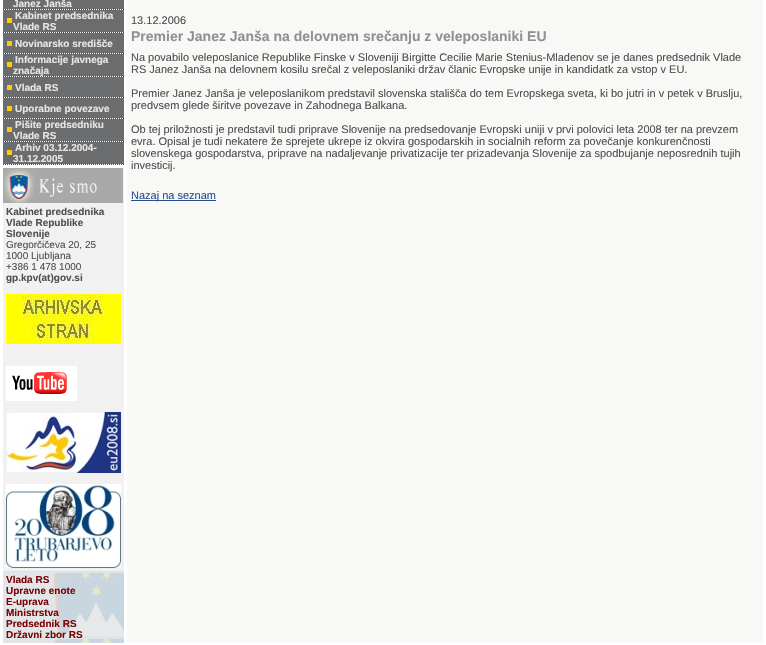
void draw(SkCanvas* canvas) {
    SkPaint paint;
    paint.setAntiAlias(true);
    canvas->clear(0xFFFFFFFF);
    paint.setColor(0xFF6B6C6E);
    canvas->drawRect(SkRect::MakeXYWH(3, 0, 121, 164), paint);
    SkFont font1(fontMgr->matchFamilyStyle("Liberation Sans", SkFontStyle::Bold()), 10);
    font1.setSubpixel(true);
    paint.setColor(0xFFE5E6E1);
    canvas->drawString("Janez Janša", 13, 7, font1, paint);
    canvas->drawImageRect(SkImages::DeferredFromEncodedData(SkData::MakeFromFileName("img1.png")), SkRect::MakeXYWH(3, 9, 121, 1), SkSamplingOptions());
    paint.setColor(0xFFFFCC00);
    canvas->drawRect(SkRect::MakeXYWH(7, 18, 5, 5), paint);
    paint.setColor(0xFFE5E6E1);
    canvas->drawString("Kabinet predsednika", 15, 19, font1, paint);
    canvas->drawString("Vlade RS", 13, 30, font1, paint);
    canvas->drawImageRect(SkImages::DeferredFromEncodedData(SkData::MakeFromFileName("img1.png")), SkRect::MakeXYWH(3, 32, 121, 1), SkSamplingOptions());
    paint.setColor(0xFFFFCC00);
    canvas->drawRect(SkRect::MakeXYWH(7, 41, 5, 5), paint);
    paint.setColor(0xFFE5E6E1);
    canvas->drawString("Novinarsko središče", 15, 47, font1, paint);
    canvas->drawImageRect(SkImages::DeferredFromEncodedData(SkData::MakeFromFileName("img1.png")), SkRect::MakeXYWH(3, 53, 121, 1), SkSamplingOptions());
    paint.setColor(0xFFFFCC00);
    canvas->drawRect(SkRect::MakeXYWH(7, 62, 5, 5), paint);
    paint.setColor(0xFFE5E6E1);
    canvas->drawString("Informacije javnega", 15, 63, font1, paint);
    canvas->drawImageRect(SkImages::DeferredFromEncodedData(SkData::MakeFromFileName("img1.png")), SkRect::MakeXYWH(3, 76, 121, 1), SkSamplingOptions());
    canvas->drawString("značaja", 13, 74, font1, paint);
    paint.setColor(0xFFFFCC00);
    canvas->drawRect(SkRect::MakeXYWH(7, 85, 5, 5), paint);
    paint.setColor(0xFFE5E6E1);
    canvas->drawString("Vlada RS", 15, 91, font1, paint);
    canvas->drawImageRect(SkImages::DeferredFromEncodedData(SkData::MakeFromFileName("img1.png")), SkRect::MakeXYWH(3, 97, 121, 1), SkSamplingOptions());
    paint.setColor(0xFFFFCC00);
    canvas->drawRect(SkRect::MakeXYWH(7, 106, 5, 5), paint);
    paint.setColor(0xFFE5E6E1);
    canvas->drawString("Uporabne povezave", 15, 112, font1, paint);
    canvas->drawImageRect(SkImages::DeferredFromEncodedData(SkData::MakeFromFileName("img1.png")), SkRect::MakeXYWH(3, 118, 121, 1), SkSamplingOptions());
    paint.setColor(0xFFFFCC00);
    canvas->drawRect(SkRect::MakeXYWH(7, 127, 5, 5), paint);
    paint.setColor(0xFFE5E6E1);
    canvas->drawString("Pišite predsedniku", 15, 128, font1, paint);
    canvas->drawString("Vlade RS", 13, 139, font1, paint);
    canvas->drawImageRect(SkImages::DeferredFromEncodedData(SkData::MakeFromFileName("img1.png")), SkRect::MakeXYWH(3, 141, 121, 1), SkSamplingOptions());
    paint.setColor(0xFFFFCC00);
    canvas->drawRect(SkRect::MakeXYWH(7, 150, 5, 5), paint);
    paint.setColor(0xFFE5E6E1);
    canvas->drawString("Arhiv 03.12.2004-", 15, 151, font1, paint);
    canvas->drawString("31.12.2005", 13, 162, font1, paint);
    canvas->drawImageRect(SkImages::DeferredFromEncodedData(SkData::MakeFromFileName("img1.png")), SkRect::MakeXYWH(3, 164, 121, 1), SkSamplingOptions());
    paint.setColor(0xFFF1F1F1);
    canvas->drawRect(SkRect::MakeXYWH(3, 168, 121, 403), paint);
    canvas->drawImageRect(SkImages::DeferredFromEncodedData(SkData::MakeFromFileName("img2.png")), SkRect::MakeXYWH(3, 168, 120, 35), SkSamplingOptions());
    paint.setColor(0xFF4F4F4F);
    canvas->drawString("Kabinet predsednika", 6, 215, font1, paint);
    canvas->drawString("Vlade Republike", 6, 226, font1, paint);
    canvas->drawString("Slovenije", 6, 237, font1, paint);
    SkFont font2(fontMgr->matchFamilyStyle("Liberation Sans", SkFontStyle::Normal()), 10);
    font2.setSubpixel(true);
    canvas->drawString("Gregorčičeva 20, 25", 6, 248, font2, paint);
    canvas->drawString("1000 Ljubljana", 6, 259, font2, paint);
    canvas->drawString("+386 1 478 1000", 6, 270, font2, paint);
    canvas->drawString("gp.kpv(at)gov.si", 6, 281, font1, paint);
    canvas->drawImageRect(SkImages::DeferredFromEncodedData(SkData::MakeFromFileName("img3.png")), SkRect::MakeXYWH(6, 294, 115, 50), SkSamplingOptions());
    canvas->drawImageRect(SkImages::DeferredFromEncodedData(SkData::MakeFromFileName("img4.png")), SkRect::MakeXYWH(6, 366, 71, 35), SkSamplingOptions());
    canvas->drawImageRect(SkImages::DeferredFromEncodedData(SkData::MakeFromFileName("img5.png")), SkRect::MakeXYWH(6, 412, 115, 61), SkSamplingOptions());
    canvas->drawImageRect(SkImages::DeferredFromEncodedData(SkData::MakeFromFileName("img6.png")), SkRect::MakeXYWH(6, 484, 115, 84), SkSamplingOptions());
    canvas->drawImageRect(SkImages::DeferredFromEncodedData(SkData::MakeFromFileName("img7.png")), SkRect::MakeXYWH(3, 571, 121, 72), SkSamplingOptions());
    paint.setColor(0xFF7B0304);
    canvas->drawString("Vlada RS", 6, 583, font1, paint);
    canvas->drawString("Upravne enote", 6, 594, font1, paint);
    canvas->drawString("E-uprava", 6, 605, font1, paint);
    canvas->drawString("Ministrstva", 6, 616, font1, paint);
    canvas->drawString("Predsednik RS", 6, 627, font1, paint);
    canvas->drawString("Državni zbor RS", 6, 638, font1, paint);
    paint.setColor(0xFFF8F8F6);
    canvas->drawRect(SkRect::MakeXYWH(127, 0, 636, 643), paint);
    SkFont font3(fontMgr->matchFamilyStyle("Liberation Sans", SkFontStyle::Normal()), 11);
    font3.setSubpixel(true);
    paint.setColor(0xFF4F4F4F);
    canvas->drawString("13.12.2006", 131, 24, font3, paint);
    SkFont font4(fontMgr->matchFamilyStyle("Liberation Sans", SkFontStyle::Bold()), 14);
    font4.setSubpixel(true);
    paint.setColor(0xFF919193);
    canvas->drawString("Premier Janez Janša na delovnem srečanju z veleposlaniki EU", 131, 41, font4, paint);
    paint.setColor(0xFF4F4F4F);
    canvas->drawString("Na povabilo veleposlanice Republike Finske v Sloveniji Birgitte Cecilie Marie Stenius-Mladenov se je danes predsednik Vlade", 131, 61, font3, paint);
    canvas->drawString("RS Janez Janša na delovnem kosilu srečal z veleposlaniki držav članic Evropske unije in kandidatk za vstop v EU.", 131, 73, font3, paint);
    canvas->drawString("Premier Janez Janša je veleposlanikom predstavil slovenska stališča do tem Evropskega sveta, ki bo jutri in v petek v Bruslju,", 131, 97, font3, paint);
    canvas->drawString("predvsem glede širitve povezave in Zahodnega Balkana.", 131, 109, font3, paint);
    canvas->drawString("Ob tej priložnosti je predstavil tudi priprave Slovenije na predsedovanje Evropski uniji v prvi polovici leta 2008 ter na prevzem", 131, 133, font3, paint);
    canvas->drawString("evra. Opisal je tudi nekatere že sprejete ukrepe iz okvira gospodarskih in socialnih reform za povečanje konkurenčnosti", 131, 145, font3, paint);
    canvas->drawString("slovenskega gospodarstva, priprave na nadaljevanje privatizacije ter prizadevanja Slovenije za spodbujanje neposrednih tujih", 131, 157, font3, paint);
    canvas->drawString("investicij.", 131, 169, font3, paint);
    paint.setColor(0xFF284E8F);
    canvas->drawRect(SkRect::MakeXYWH(131, 200, 85, 1), paint);
    canvas->drawString("Nazaj na seznam", 131, 199, font3, paint);
}
